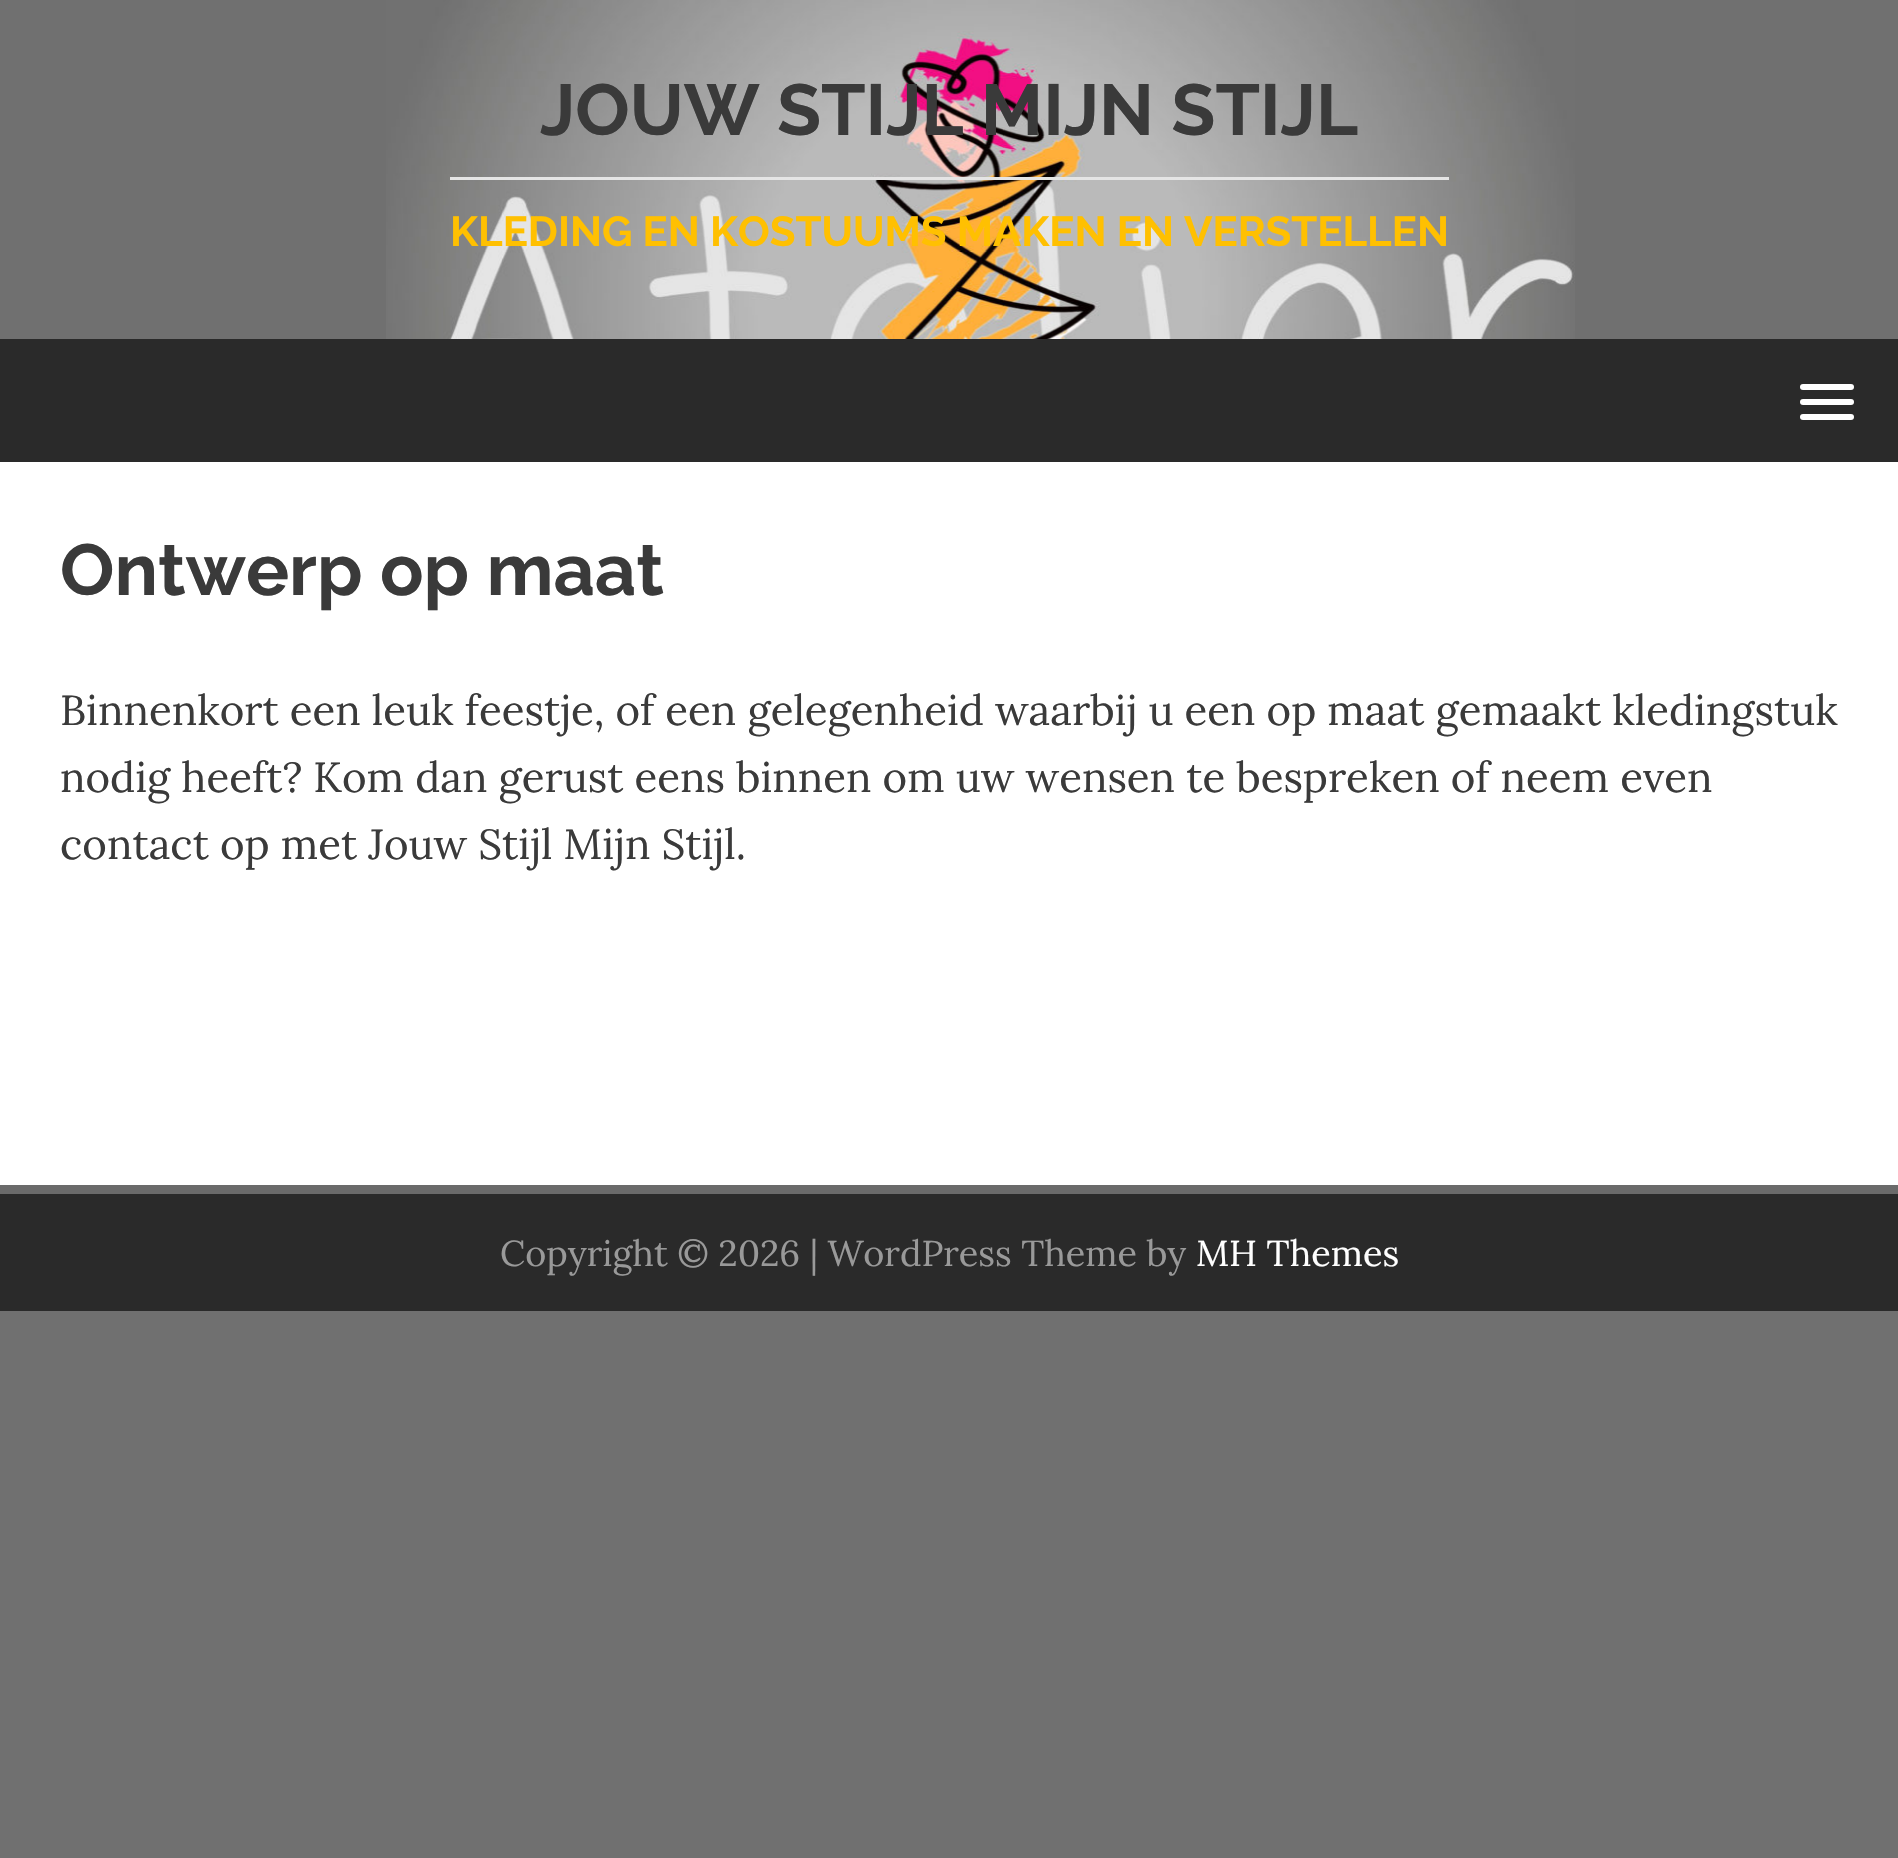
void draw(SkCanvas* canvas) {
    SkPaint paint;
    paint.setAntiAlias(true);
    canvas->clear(0xFF707070);
    canvas->drawImageRect(SkImages::DeferredFromEncodedData(SkData::MakeFromFileName("img1.png")), SkRect::MakeXYWH(386, 0, 1189, 339), SkSamplingOptions());
    SkFont font1(fontMgr->matchFamilyStyle("Raleway", SkFontStyle::Bold()), 72);
    font1.setSubpixel(true);
    paint.setColor(0xFF3A3A3A);
    canvas->drawString("JOUW STIJL MIJN STIJL", 540, 135, font1, paint);
    paint.setColor(0xFFE5E5E5);
    canvas->drawRect(SkRect::MakeXYWH(450, 177, 999, 3), paint);
    SkFont font2(fontMgr->matchFamilyStyle("Raleway", SkFontStyle::Bold()), 42);
    font2.setSubpixel(true);
    paint.setColor(0xFFFFC001);
    canvas->drawString("KLEDING EN KOSTUUMS MAKEN EN VERSTELLEN", 450, 246, font2, paint);
    paint.setColor(0xFF2A2A2A);
    canvas->drawRect(SkRect::MakeXYWH(0, 339, 1898, 123), paint);
    paint.setColor(0xFFFFFFFF);
    canvas->drawRoundRect(SkRect::MakeXYWH(1800, 384, 54, 6), 3, 3, paint);
    canvas->drawRoundRect(SkRect::MakeXYWH(1800, 399, 54, 6), 3, 3, paint);
    canvas->drawRoundRect(SkRect::MakeXYWH(1800, 414, 54, 6), 3, 3, paint);
    canvas->drawRect(SkRect::MakeXYWH(0, 462, 1898, 723), paint);
    paint.setColor(0xFF3A3A3A);
    canvas->drawString("Ontwerp op maat", 60, 595, font1, paint);
    SkFont font3(fontMgr->matchFamilyStyle("Lora", SkFontStyle::Normal()), 42);
    font3.setSubpixel(true);
    canvas->drawString("Binnenkort een leuk feestje, of een gelegenheid waarbij u een op maat gemaakt kledingstuk", 60, 725, font3, paint);
    canvas->drawString("nodig heeft? Kom dan gerust eens binnen om uw wensen te bespreken of neem even", 60, 792, font3, paint);
    canvas->drawString("contact op met Jouw Stijl Mijn Stijl.", 60, 859, font3, paint);
    paint.setColor(0xFF2A2A2A);
    canvas->drawRect(SkRect::MakeXYWH(0, 1194, 1898, 117), paint);
    paint.setColor(0xFF6A6A6A);
    canvas->drawRect(SkRect::MakeXYWH(0, 1185, 1898, 9), paint);
    SkFont font4(fontMgr->matchFamilyStyle("Lora", SkFontStyle::Normal()), 36);
    font4.setSubpixel(true);
    paint.setColor(0xFF999999);
    canvas->drawString("Copyright © 2026 | WordPress Theme by", 500, 1266, font4, paint);
    paint.setColor(0xFFFFFFFF);
    canvas->drawString("MH Themes", 1196, 1266, font4, paint);
}
